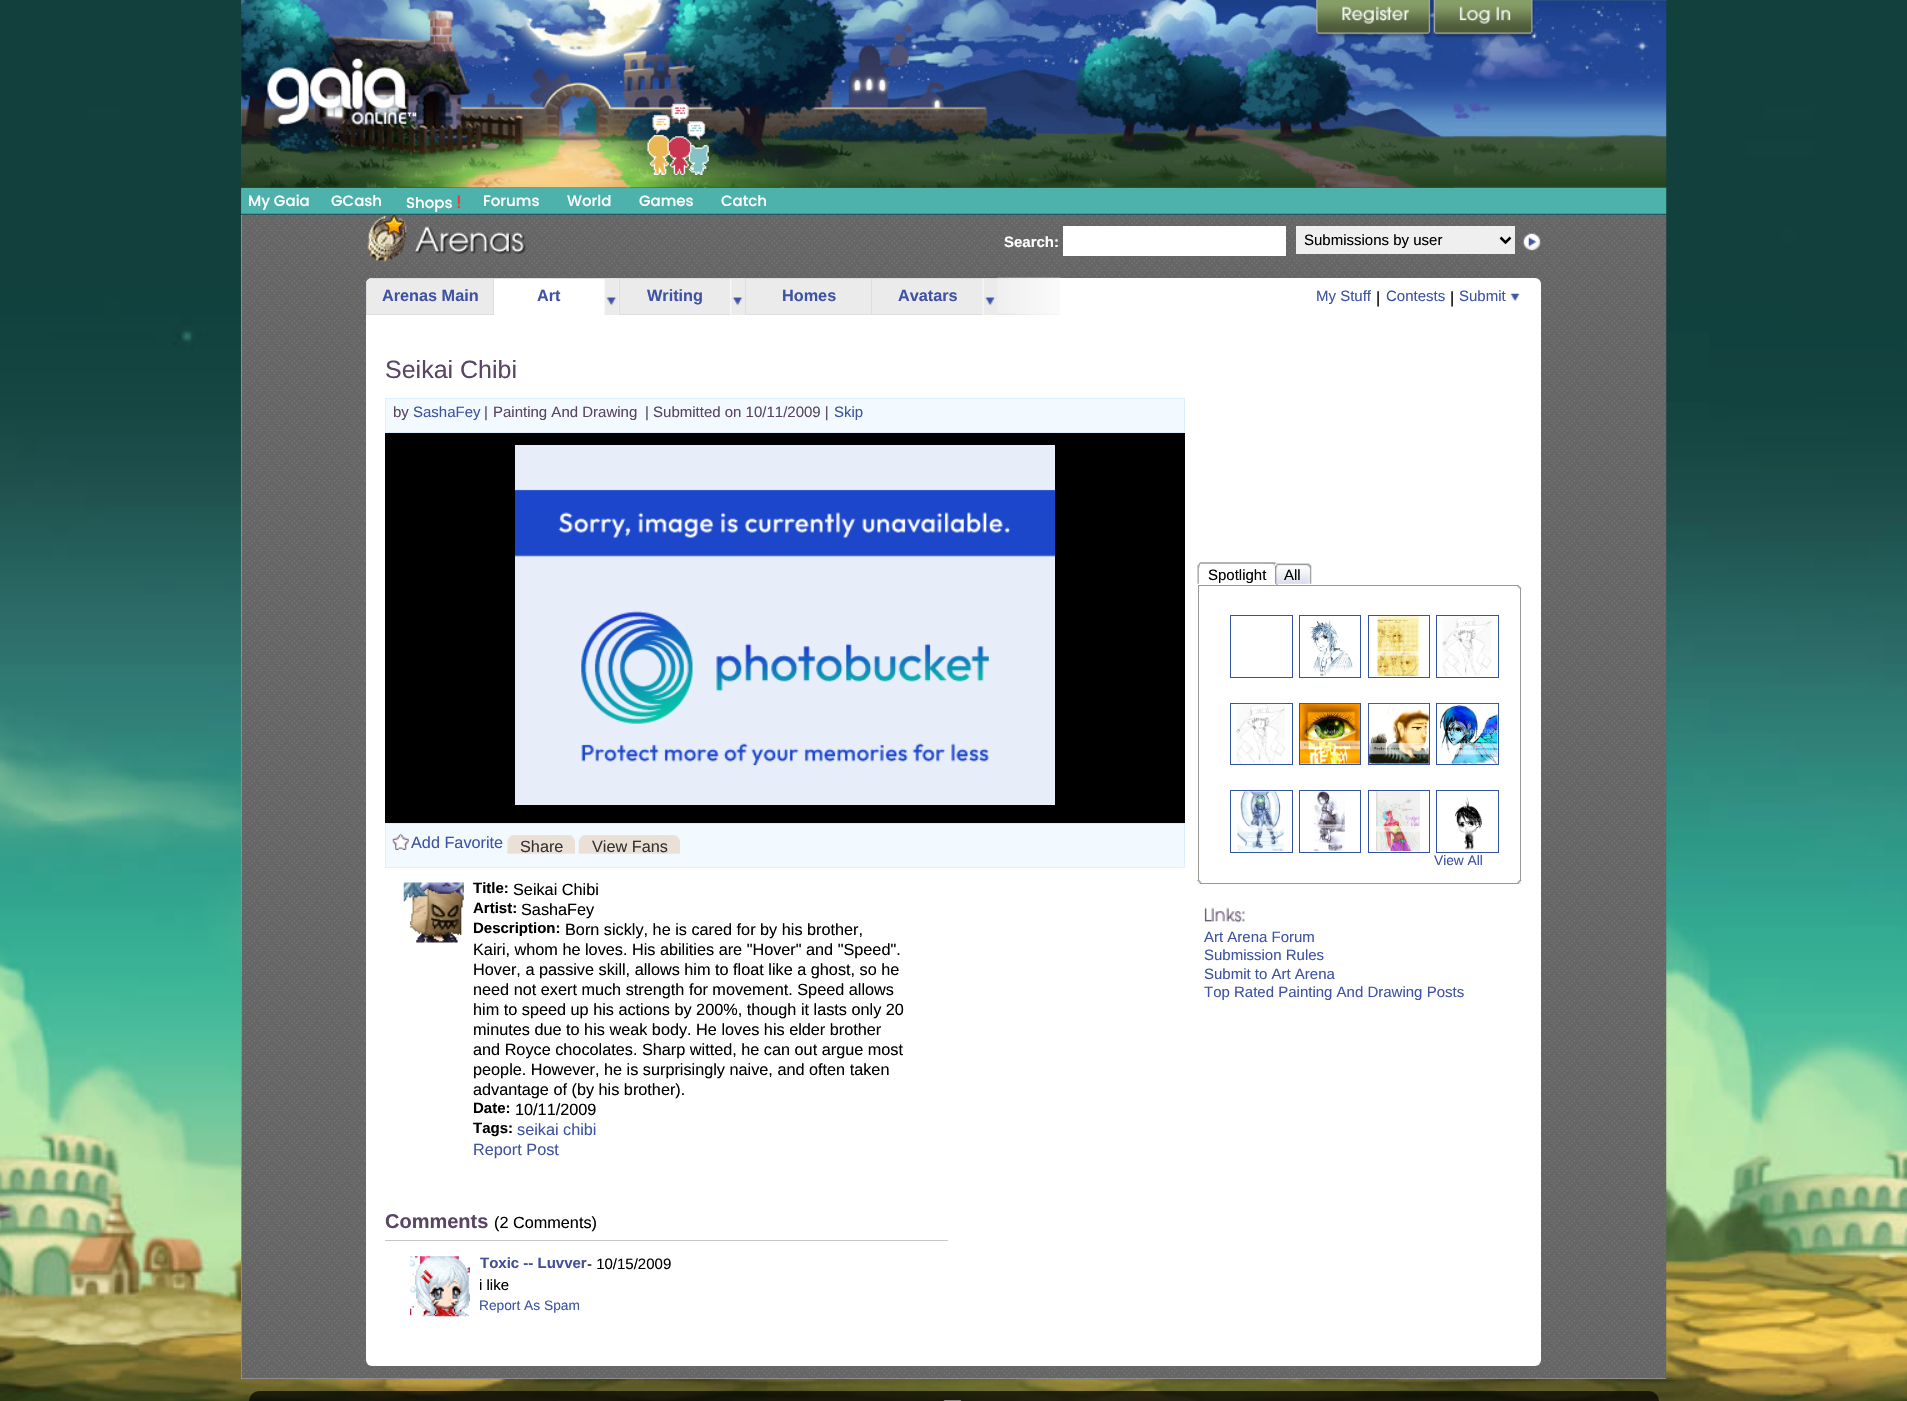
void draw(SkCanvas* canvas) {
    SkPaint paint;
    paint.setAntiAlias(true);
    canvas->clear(0xFF12403D);
    canvas->drawImageRect(SkImages::DeferredFromEncodedData(SkData::MakeFromFileName("img1.png")), SkRect::MakeXYWH(0, 84, 1907, 1317), SkSamplingOptions());
    canvas->drawImageRect(SkImages::DeferredFromEncodedData(SkData::MakeFromFileName("img2.png")), SkRect::MakeXYWH(241, 0, 1426, 188), SkSamplingOptions());
    canvas->drawImageRect(SkImages::DeferredFromEncodedData(SkData::MakeFromFileName("img8.png")), SkRect::MakeXYWH(241, 187, 1426, 28), SkSamplingOptions());
    canvas->drawImageRect(SkImages::DeferredFromEncodedData(SkData::MakeFromFileName("img3.png")), SkRect::MakeXYWH(241, 0, 1213, 188), SkSamplingOptions());
    canvas->drawImageRect(SkImages::DeferredFromEncodedData(SkData::MakeFromFileName("img4.png")), SkRect::MakeXYWH(1316, 0, 117, 38), SkSamplingOptions());
    canvas->drawImageRect(SkImages::DeferredFromEncodedData(SkData::MakeFromFileName("img5.png")), SkRect::MakeXYWH(1433, 0, 101, 38), SkSamplingOptions());
    canvas->drawImageRect(SkImages::DeferredFromEncodedData(SkData::MakeFromFileName("img6.png")), SkRect::MakeXYWH(267, 57, 150, 69), SkSamplingOptions());
    canvas->drawImageRect(SkImages::DeferredFromEncodedData(SkData::MakeFromFileName("img7.png")), SkRect::MakeXYWH(647, 103, 62, 72), SkSamplingOptions());
    canvas->drawImageRect(SkImages::DeferredFromEncodedData(SkData::MakeFromFileName("img9.png")), SkRect::MakeXYWH(241, 188, 1, 26), SkSamplingOptions());
    SkFont font1(fontMgr->matchFamilyStyle("Poppins", SkFontStyle(500, SkFontStyle::kNormal_Width, SkFontStyle::kUpright_Slant)), 15);
    font1.setSubpixel(true);
    paint.setColor(0xFFFFFFFF);
    canvas->drawString("My Gaia", 248, 206, font1, paint);
    canvas->drawImageRect(SkImages::DeferredFromEncodedData(SkData::MakeFromFileName("img10.png")), SkRect::MakeXYWH(316, 187, 3, 28), SkSamplingOptions());
    canvas->drawString("GCash", 331, 206, font1, paint);
    canvas->drawImageRect(SkImages::DeferredFromEncodedData(SkData::MakeFromFileName("img11.png")), SkRect::MakeXYWH(393, 187, 4, 28), SkSamplingOptions());
    canvas->drawString("Shops", 406, 208, font1, paint);
    SkFont font2(fontMgr->matchFamilyStyle("Poppins", SkFontStyle(500, SkFontStyle::kNormal_Width, SkFontStyle::kUpright_Slant)), 18);
    font2.setSubpixel(true);
    paint.setColor(0xFFFF3333);
    canvas->drawString("!", 456, 208, font2, paint);
    canvas->drawImageRect(SkImages::DeferredFromEncodedData(SkData::MakeFromFileName("img12.png")), SkRect::MakeXYWH(471, 187, 3, 28), SkSamplingOptions());
    paint.setColor(0xFFFFFFFF);
    canvas->drawString("Forums", 483, 206, font1, paint);
    canvas->drawImageRect(SkImages::DeferredFromEncodedData(SkData::MakeFromFileName("img13.png")), SkRect::MakeXYWH(548, 187, 4, 28), SkSamplingOptions());
    canvas->drawString("World", 567, 206, font1, paint);
    canvas->drawImageRect(SkImages::DeferredFromEncodedData(SkData::MakeFromFileName("img14.png")), SkRect::MakeXYWH(626, 187, 3, 28), SkSamplingOptions());
    canvas->drawString("Games", 639, 206, font1, paint);
    canvas->drawImageRect(SkImages::DeferredFromEncodedData(SkData::MakeFromFileName("img15.png")), SkRect::MakeXYWH(703, 187, 4, 28), SkSamplingOptions());
    canvas->drawString("Catch", 721, 206, font1, paint);
    canvas->drawImageRect(SkImages::DeferredFromEncodedData(SkData::MakeFromFileName("img16.png")), SkRect::MakeXYWH(781, 187, 3, 28), SkSamplingOptions());
    canvas->drawRect(SkRect::MakeXYWH(241, 215, 1425, 1164), paint);
    canvas->drawImageRect(SkImages::DeferredFromEncodedData(SkData::MakeFromFileName("img17.png")), SkRect::MakeXYWH(241, 215, 1426, 1164), SkSamplingOptions());
    canvas->drawImageRect(SkImages::DeferredFromEncodedData(SkData::MakeFromFileName("img18.png")), SkRect::MakeXYWH(367, 215, 160, 47), SkSamplingOptions());
    SkFont font3(fontMgr->matchFamilyStyle("Liberation Sans", SkFontStyle::Bold()), 15);
    font3.setSubpixel(true);
    canvas->drawString("Search:", 1004, 247, font3, paint);
    canvas->drawRect(SkRect::MakeXYWH(1063, 226, 223, 30), paint);
    paint.setColor(0xFFEFEFEF);
    canvas->drawRect(SkRect::MakeXYWH(1296, 226, 219, 28), paint);
    paint.setStyle(SkPaint::kStroke_Style);
    paint.setStrokeWidth(2.5f);
    paint.setColor(0xFF000000);
    canvas->drawPath(SkPathBuilder().moveTo(1500.5f, 237.5f).lineTo(1505.5f, 242.5f).lineTo(1510.5f, 237.5f).detach(), paint);
    SkFont font4(fontMgr->matchFamilyStyle("Liberation Sans", SkFontStyle::Normal()), 15);
    font4.setSubpixel(true);
    paint.setStyle(SkPaint::kFill_Style);
    canvas->drawString("Submissions by user", 1304, 245, font4, paint);
    canvas->drawImageRect(SkImages::DeferredFromEncodedData(SkData::MakeFromFileName("img19.png")), SkRect::MakeXYWH(1523, 233, 18, 18), SkSamplingOptions());
    paint.setColor(0xFFFFFFFF);
    canvas->drawRoundRect(SkRect::MakeXYWH(366, 278, 1175, 1088), 6, 6, paint);
    paint.setColor(0xFFEBEBEB);
    canvas->drawPath(SkPathBuilder().moveTo(372, 278).lineTo(494, 278).lineTo(494, 315).lineTo(366, 315).lineTo(366, 284).cubicTo(366, 280.5f, 368.5f, 278, 372, 278).close().detach(), paint);
    paint.setColor(0xFFDCDEE3);
    canvas->drawPath(SkPathBuilder().moveTo(372, 278).lineTo(369, 279).lineTo(493, 279).lineTo(493, 314).lineTo(367, 314).lineTo(367, 281).cubicTo(366, 282, 366, 283, 366, 284).lineTo(366, 315).lineTo(494, 315).lineTo(494, 278).close().detach(), paint);
    SkFont font5(fontMgr->matchFamilyStyle("Liberation Sans", SkFontStyle::Bold()), 16.25f);
    font5.setSubpixel(true);
    paint.setColor(0xFF3E53A2);
    canvas->drawString("Arenas Main", 382, 301, font5, paint);
    paint.setColor(0xFFDCDEE3);
    canvas->drawRect(SkRect::MakeXYWH(493, 278, 127, 1), paint);
    paint.setColor(0xFF3E53A2);
    canvas->drawString("Art", 537, 301, font5, paint);
    canvas->drawImageRect(SkImages::DeferredFromEncodedData(SkData::MakeFromFileName("img20.png")), SkRect::MakeXYWH(604, 278, 15, 37), SkSamplingOptions());
    paint.setColor(0xFFEBEBEB);
    canvas->drawRect(SkRect::MakeXYWH(620, 279, 110, 35), paint);
    paint.setStyle(SkPaint::kStroke_Style);
    paint.setStrokeWidth(1);
    paint.setColor(0xFFDCDEE3);
    canvas->drawRect(SkRect::MakeXYWH(619.5f, 278.5f, 126, 36), paint);
    paint.setStyle(SkPaint::kFill_Style);
    paint.setColor(0xFF3E53A2);
    canvas->drawString("Writing", 647, 301, font5, paint);
    canvas->drawImageRect(SkImages::DeferredFromEncodedData(SkData::MakeFromFileName("img21.png")), SkRect::MakeXYWH(730, 278, 15, 37), SkSamplingOptions());
    paint.setColor(0xFFEBEBEB);
    canvas->drawRect(SkRect::MakeXYWH(746, 279, 125, 35), paint);
    paint.setStyle(SkPaint::kStroke_Style);
    paint.setColor(0xFFDCDEE3);
    canvas->drawRect(SkRect::MakeXYWH(745.5f, 278.5f, 127, 36), paint);
    paint.setStyle(SkPaint::kFill_Style);
    paint.setColor(0xFF3E53A2);
    canvas->drawString("Homes", 782, 301, font5, paint);
    paint.setColor(0xFFEBEBEB);
    canvas->drawRect(SkRect::MakeXYWH(872, 279, 126, 35), paint);
    paint.setColor(0xFFDCDEE3);
    canvas->drawRect(SkRect::MakeXYWH(871, 278, 127, 1), paint);
    canvas->drawRect(SkRect::MakeXYWH(871, 314, 127, 1), paint);
    canvas->drawRect(SkRect::MakeXYWH(871, 278, 1, 37), paint);
    paint.setColor(0xFF3E53A2);
    canvas->drawString("Avatars", 898, 301, font5, paint);
    canvas->drawImageRect(SkImages::DeferredFromEncodedData(SkData::MakeFromFileName("img22.png")), SkRect::MakeXYWH(982, 278, 16, 37), SkSamplingOptions());
    canvas->drawImageRect(SkImages::DeferredFromEncodedData(SkData::MakeFromFileName("img23.png")), SkRect::MakeXYWH(997, 277, 63, 38), SkSamplingOptions());
    SkFont font6(fontMgr->matchFamilyStyle("Liberation Sans", SkFontStyle::Normal()), 25);
    font6.setSubpixel(true);
    paint.setColor(0xFF5A4564);
    canvas->drawString("Seikai Chibi", 385, 378, font6, paint);
    paint.setColor(0xFFF3FAFF);
    canvas->drawRect(SkRect::MakeXYWH(385.5f, 398.5f, 799, 34), paint);
    paint.setStyle(SkPaint::kStroke_Style);
    paint.setColor(0xFFDDEEFF);
    canvas->drawRect(SkRect::MakeXYWH(385.5f, 398.5f, 799, 34), paint);
    paint.setStyle(SkPaint::kFill_Style);
    paint.setColor(0xFF5A4564);
    canvas->drawString("by", 393, 417, font4, paint);
    paint.setColor(0xFF3E53A2);
    canvas->drawString("SashaFey", 413, 417, font4, paint);
    paint.setColor(0xFF5A4564);
    canvas->drawString("|", 484, 417, font4, paint);
    canvas->drawString("Painting And Drawing", 493, 417, font4, paint);
    canvas->drawString("| Submitted on 10/11/2009 |", 645, 417, font4, paint);
    paint.setColor(0xFF3E53A2);
    canvas->drawString("Skip", 834, 417, font4, paint);
    paint.setColor(0xFF000000);
    canvas->drawRect(SkRect::MakeXYWH(385, 433, 800, 390), paint);
    canvas->drawImageRect(SkImages::DeferredFromEncodedData(SkData::MakeFromFileName("img24.png")), SkRect::MakeXYWH(515, 445, 540, 360), SkSamplingOptions());
    paint.setColor(0xFFF3FAFF);
    canvas->drawRect(SkRect::MakeXYWH(385.5f, 823.5f, 799, 44), paint);
    paint.setStyle(SkPaint::kStroke_Style);
    paint.setColor(0xFFDDEEFF);
    canvas->drawRect(SkRect::MakeXYWH(385.5f, 823.5f, 799, 44), paint);
    canvas->drawImageRect(SkImages::DeferredFromEncodedData(SkData::MakeFromFileName("img25.png")), SkRect::MakeXYWH(392, 833, 17, 17), SkSamplingOptions());
    SkFont font7(fontMgr->matchFamilyStyle("Liberation Sans", SkFontStyle::Normal()), 16.25f);
    font7.setSubpixel(true);
    paint.setStyle(SkPaint::kFill_Style);
    paint.setColor(0xFF3E53A2);
    canvas->drawString("Add Favorite", 411, 848, font7, paint);
    canvas->drawImageRect(SkImages::DeferredFromEncodedData(SkData::MakeFromFileName("img26.png")), SkRect::MakeXYWH(547, 835, 28, 19), SkSamplingOptions());
    canvas->drawImageRect(SkImages::DeferredFromEncodedData(SkData::MakeFromFileName("img27.png")), SkRect::MakeXYWH(507, 835, 55, 19), SkSamplingOptions());
    paint.setColor(0xFF333333);
    canvas->drawString("Share", 520, 852, font7, paint);
    canvas->drawImageRect(SkImages::DeferredFromEncodedData(SkData::MakeFromFileName("img28.png")), SkRect::MakeXYWH(652, 835, 28, 19), SkSamplingOptions());
    canvas->drawImageRect(SkImages::DeferredFromEncodedData(SkData::MakeFromFileName("img29.png")), SkRect::MakeXYWH(578, 835, 89, 19), SkSamplingOptions());
    canvas->drawString("View Fans", 592, 852, font7, paint);
    canvas->drawImageRect(SkImages::DeferredFromEncodedData(SkData::MakeFromFileName("img30.png")), SkRect::MakeXYWH(403, 882, 61, 61), SkSamplingOptions());
    paint.setColor(0xFF000000);
    canvas->drawString("Title:", 473, 893, font3, paint);
    canvas->drawString("Seikai Chibi", 513, 895, font7, paint);
    canvas->drawString("Artist:", 473, 913, font3, paint);
    canvas->drawString("SashaFey", 521, 915, font7, paint);
    canvas->drawString("Description:", 473, 933, font3, paint);
    canvas->drawString("Born sickly, he is cared for by his brother,", 565, 935, font7, paint);
    canvas->drawString("Kairi, whom he loves. His abilities are \"Hover\" and \"Speed\".", 473, 955, font7, paint);
    canvas->drawString("Hover, a passive skill, allows him to float like a ghost, so he", 473, 975, font7, paint);
    canvas->drawString("need not exert much strength for movement. Speed allows", 473, 995, font7, paint);
    canvas->drawString("him to speed up his actions by 200%, though it lasts only 20", 473, 1015, font7, paint);
    canvas->drawString("minutes due to his weak body. He loves his elder brother", 473, 1035, font7, paint);
    canvas->drawString("and Royce chocolates. Sharp witted, he can out argue most", 473, 1055, font7, paint);
    canvas->drawString("people. However, he is surprisingly naive, and often taken", 473, 1075, font7, paint);
    canvas->drawString("advantage of (by his brother).", 473, 1095, font7, paint);
    canvas->drawString("Date:", 473, 1113, font3, paint);
    canvas->drawString("10/11/2009", 515, 1115, font7, paint);
    canvas->drawString("Tags:", 473, 1133, font3, paint);
    paint.setColor(0xFF3E53A2);
    canvas->drawString("seikai chibi", 517, 1135, font7, paint);
    canvas->drawString("Report Post", 473, 1155, font7, paint);
    SkFont font8(fontMgr->matchFamilyStyle("Liberation Sans", SkFontStyle::Bold()), 20);
    font8.setSubpixel(true);
    paint.setColor(0xFF5A4564);
    canvas->drawString("Comments", 385, 1228, font8, paint);
    paint.setColor(0xFF000000);
    canvas->drawString("(2 Comments)", 494, 1228, font7, paint);
    paint.setColor(0xFFC5C7C9);
    canvas->drawRect(SkRect::MakeXYWH(385, 1240, 563, 1), paint);
    canvas->drawImageRect(SkImages::DeferredFromEncodedData(SkData::MakeFromFileName("img31.png")), SkRect::MakeXYWH(410, 1256, 60, 61), SkSamplingOptions());
    paint.setColor(0xFF454F94);
    canvas->drawString("Toxic -- Luvver", 480, 1268, font3, paint);
    paint.setColor(0xFF000000);
    canvas->drawString("- 10/15/2009", 587, 1269, font4, paint);
    canvas->drawString("i like", 479, 1290, font4, paint);
    SkFont font9(fontMgr->matchFamilyStyle("Liberation Sans", SkFontStyle::Normal()), 13.75f);
    font9.setSubpixel(true);
    paint.setColor(0xFF3E53A2);
    canvas->drawString("Report As Spam", 479, 1310, font9, paint);
    canvas->drawString("My Stuff", 1316, 301, font4, paint);
    paint.setColor(0xFF000000);
    canvas->drawString("|", 1376, 303, font7, paint);
    paint.setColor(0xFF3E53A2);
    canvas->drawString("Contests", 1386, 301, font4, paint);
    paint.setColor(0xFF000000);
    canvas->drawString("|", 1450, 303, font7, paint);
    paint.setColor(0xFF3E53A2);
    canvas->drawString("Submit", 1459, 301, font4, paint);
    canvas->drawImageRect(SkImages::DeferredFromEncodedData(SkData::MakeFromFileName("img32.png")), SkRect::MakeXYWH(1510, 293, 10, 9), SkSamplingOptions());
    canvas->drawImageRect(SkImages::DeferredFromEncodedData(SkData::MakeFromFileName("img33.png")), SkRect::MakeXYWH(1197, 562, 78, 22), SkSamplingOptions());
    canvas->drawImageRect(SkImages::DeferredFromEncodedData(SkData::MakeFromFileName("img34.png")), SkRect::MakeXYWH(1200, 562, 78, 23), SkSamplingOptions());
    canvas->drawImageRect(SkImages::DeferredFromEncodedData(SkData::MakeFromFileName("img35.png")), SkRect::MakeXYWH(1275, 563, 34, 21), SkSamplingOptions());
    paint.setColor(0xFF000000);
    canvas->drawString("Spotlight", 1208, 580, font4, paint);
    canvas->drawImageRect(SkImages::DeferredFromEncodedData(SkData::MakeFromFileName("img36.png")), SkRect::MakeXYWH(1277, 563, 35, 21), SkSamplingOptions());
    canvas->drawString("All", 1284, 580, font4, paint);
    paint.setStyle(SkPaint::kStroke_Style);
    paint.setColor(0xFF999999);
    canvas->drawRect(SkRect::MakeXYWH(1198.5f, 585.5f, 322, 298), paint);
    canvas->drawImageRect(SkImages::DeferredFromEncodedData(SkData::MakeFromFileName("img37.png")), SkRect::MakeXYWH(1517, 585, 5, 4), SkSamplingOptions());
    paint.setColor(0xFF3253A2);
    canvas->drawRect(SkRect::MakeXYWH(1230.5f, 615.5f, 62, 62), paint);
    canvas->drawRect(SkRect::MakeXYWH(1299.5f, 615.5f, 61, 62), paint);
    canvas->drawImageRect(SkImages::DeferredFromEncodedData(SkData::MakeFromFileName("img38.png")), SkRect::MakeXYWH(1310, 619, 43, 57), SkSamplingOptions());
    canvas->drawRect(SkRect::MakeXYWH(1368.5f, 615.5f, 61, 62), paint);
    canvas->drawImageRect(SkImages::DeferredFromEncodedData(SkData::MakeFromFileName("img39.png")), SkRect::MakeXYWH(1377, 616, 42, 61), SkSamplingOptions());
    canvas->drawRect(SkRect::MakeXYWH(1436.5f, 615.5f, 62, 62), paint);
    canvas->drawImageRect(SkImages::DeferredFromEncodedData(SkData::MakeFromFileName("img40.png")), SkRect::MakeXYWH(1442, 616, 50, 60), SkSamplingOptions());
    canvas->drawRect(SkRect::MakeXYWH(1230.5f, 703.5f, 62, 61), paint);
    canvas->drawImageRect(SkImages::DeferredFromEncodedData(SkData::MakeFromFileName("img41.png")), SkRect::MakeXYWH(1236, 703, 49, 61), SkSamplingOptions());
    canvas->drawRect(SkRect::MakeXYWH(1299.5f, 703.5f, 61, 61), paint);
    canvas->drawImageRect(SkImages::DeferredFromEncodedData(SkData::MakeFromFileName("img42.png")), SkRect::MakeXYWH(1300, 703, 60, 61), SkSamplingOptions());
    canvas->drawRect(SkRect::MakeXYWH(1368.5f, 703.5f, 61, 61), paint);
    canvas->drawImageRect(SkImages::DeferredFromEncodedData(SkData::MakeFromFileName("img43.png")), SkRect::MakeXYWH(1368, 703, 61, 61), SkSamplingOptions());
    canvas->drawRect(SkRect::MakeXYWH(1436.5f, 703.5f, 62, 61), paint);
    canvas->drawImageRect(SkImages::DeferredFromEncodedData(SkData::MakeFromFileName("img44.png")), SkRect::MakeXYWH(1438, 703, 60, 61), SkSamplingOptions());
    canvas->drawRect(SkRect::MakeXYWH(1230.5f, 790.5f, 62, 62), paint);
    canvas->drawImageRect(SkImages::DeferredFromEncodedData(SkData::MakeFromFileName("img45.png")), SkRect::MakeXYWH(1237, 791, 47, 61), SkSamplingOptions());
    canvas->drawRect(SkRect::MakeXYWH(1299.5f, 790.5f, 61, 62), paint);
    canvas->drawImageRect(SkImages::DeferredFromEncodedData(SkData::MakeFromFileName("img46.png")), SkRect::MakeXYWH(1313, 791, 32, 61), SkSamplingOptions());
    canvas->drawRect(SkRect::MakeXYWH(1368.5f, 790.5f, 61, 62), paint);
    canvas->drawImageRect(SkImages::DeferredFromEncodedData(SkData::MakeFromFileName("img47.png")), SkRect::MakeXYWH(1376, 791, 44, 61), SkSamplingOptions());
    canvas->drawRect(SkRect::MakeXYWH(1436.5f, 790.5f, 62, 62), paint);
    canvas->drawImageRect(SkImages::DeferredFromEncodedData(SkData::MakeFromFileName("img48.png")), SkRect::MakeXYWH(1455, 797, 27, 53), SkSamplingOptions());
    paint.setStyle(SkPaint::kFill_Style);
    paint.setColor(0xFF3E53A2);
    canvas->drawString("View All", 1434, 865, font9, paint);
    canvas->drawImageRect(SkImages::DeferredFromEncodedData(SkData::MakeFromFileName("img49.png")), SkRect::MakeXYWH(1197, 880, 5, 4), SkSamplingOptions());
    canvas->drawImageRect(SkImages::DeferredFromEncodedData(SkData::MakeFromFileName("img50.png")), SkRect::MakeXYWH(1517, 880, 5, 4), SkSamplingOptions());
    canvas->drawImageRect(SkImages::DeferredFromEncodedData(SkData::MakeFromFileName("img51.png")), SkRect::MakeXYWH(1204, 907, 42, 16), SkSamplingOptions());
    canvas->drawString("Art Arena Forum", 1204, 942, font4, paint);
    canvas->drawString("Submission Rules", 1204, 960, font4, paint);
    canvas->drawString("Submit to Art Arena", 1204, 979, font4, paint);
    canvas->drawString("Top Rated Painting And Drawing Posts", 1204, 997, font4, paint);
    paint.setColor(0xB3000000);
    canvas->drawRoundRect(SkRect::MakeXYWH(249, 1391, 1410, 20), 10, 10, paint);
    paint.setStyle(SkPaint::kStroke_Style);
    paint.setColor(0xFFC0C0BC);
    canvas->drawRoundRect(SkRect::MakeXYWH(939.5f, 1400.5f, 26, 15), 13, 13, paint);
    paint.setColor(0xFF888888);
    canvas->drawRoundRect(SkRect::MakeXYWH(939.5f, 1400.5f, 26, 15), 13, 13, paint);
}
